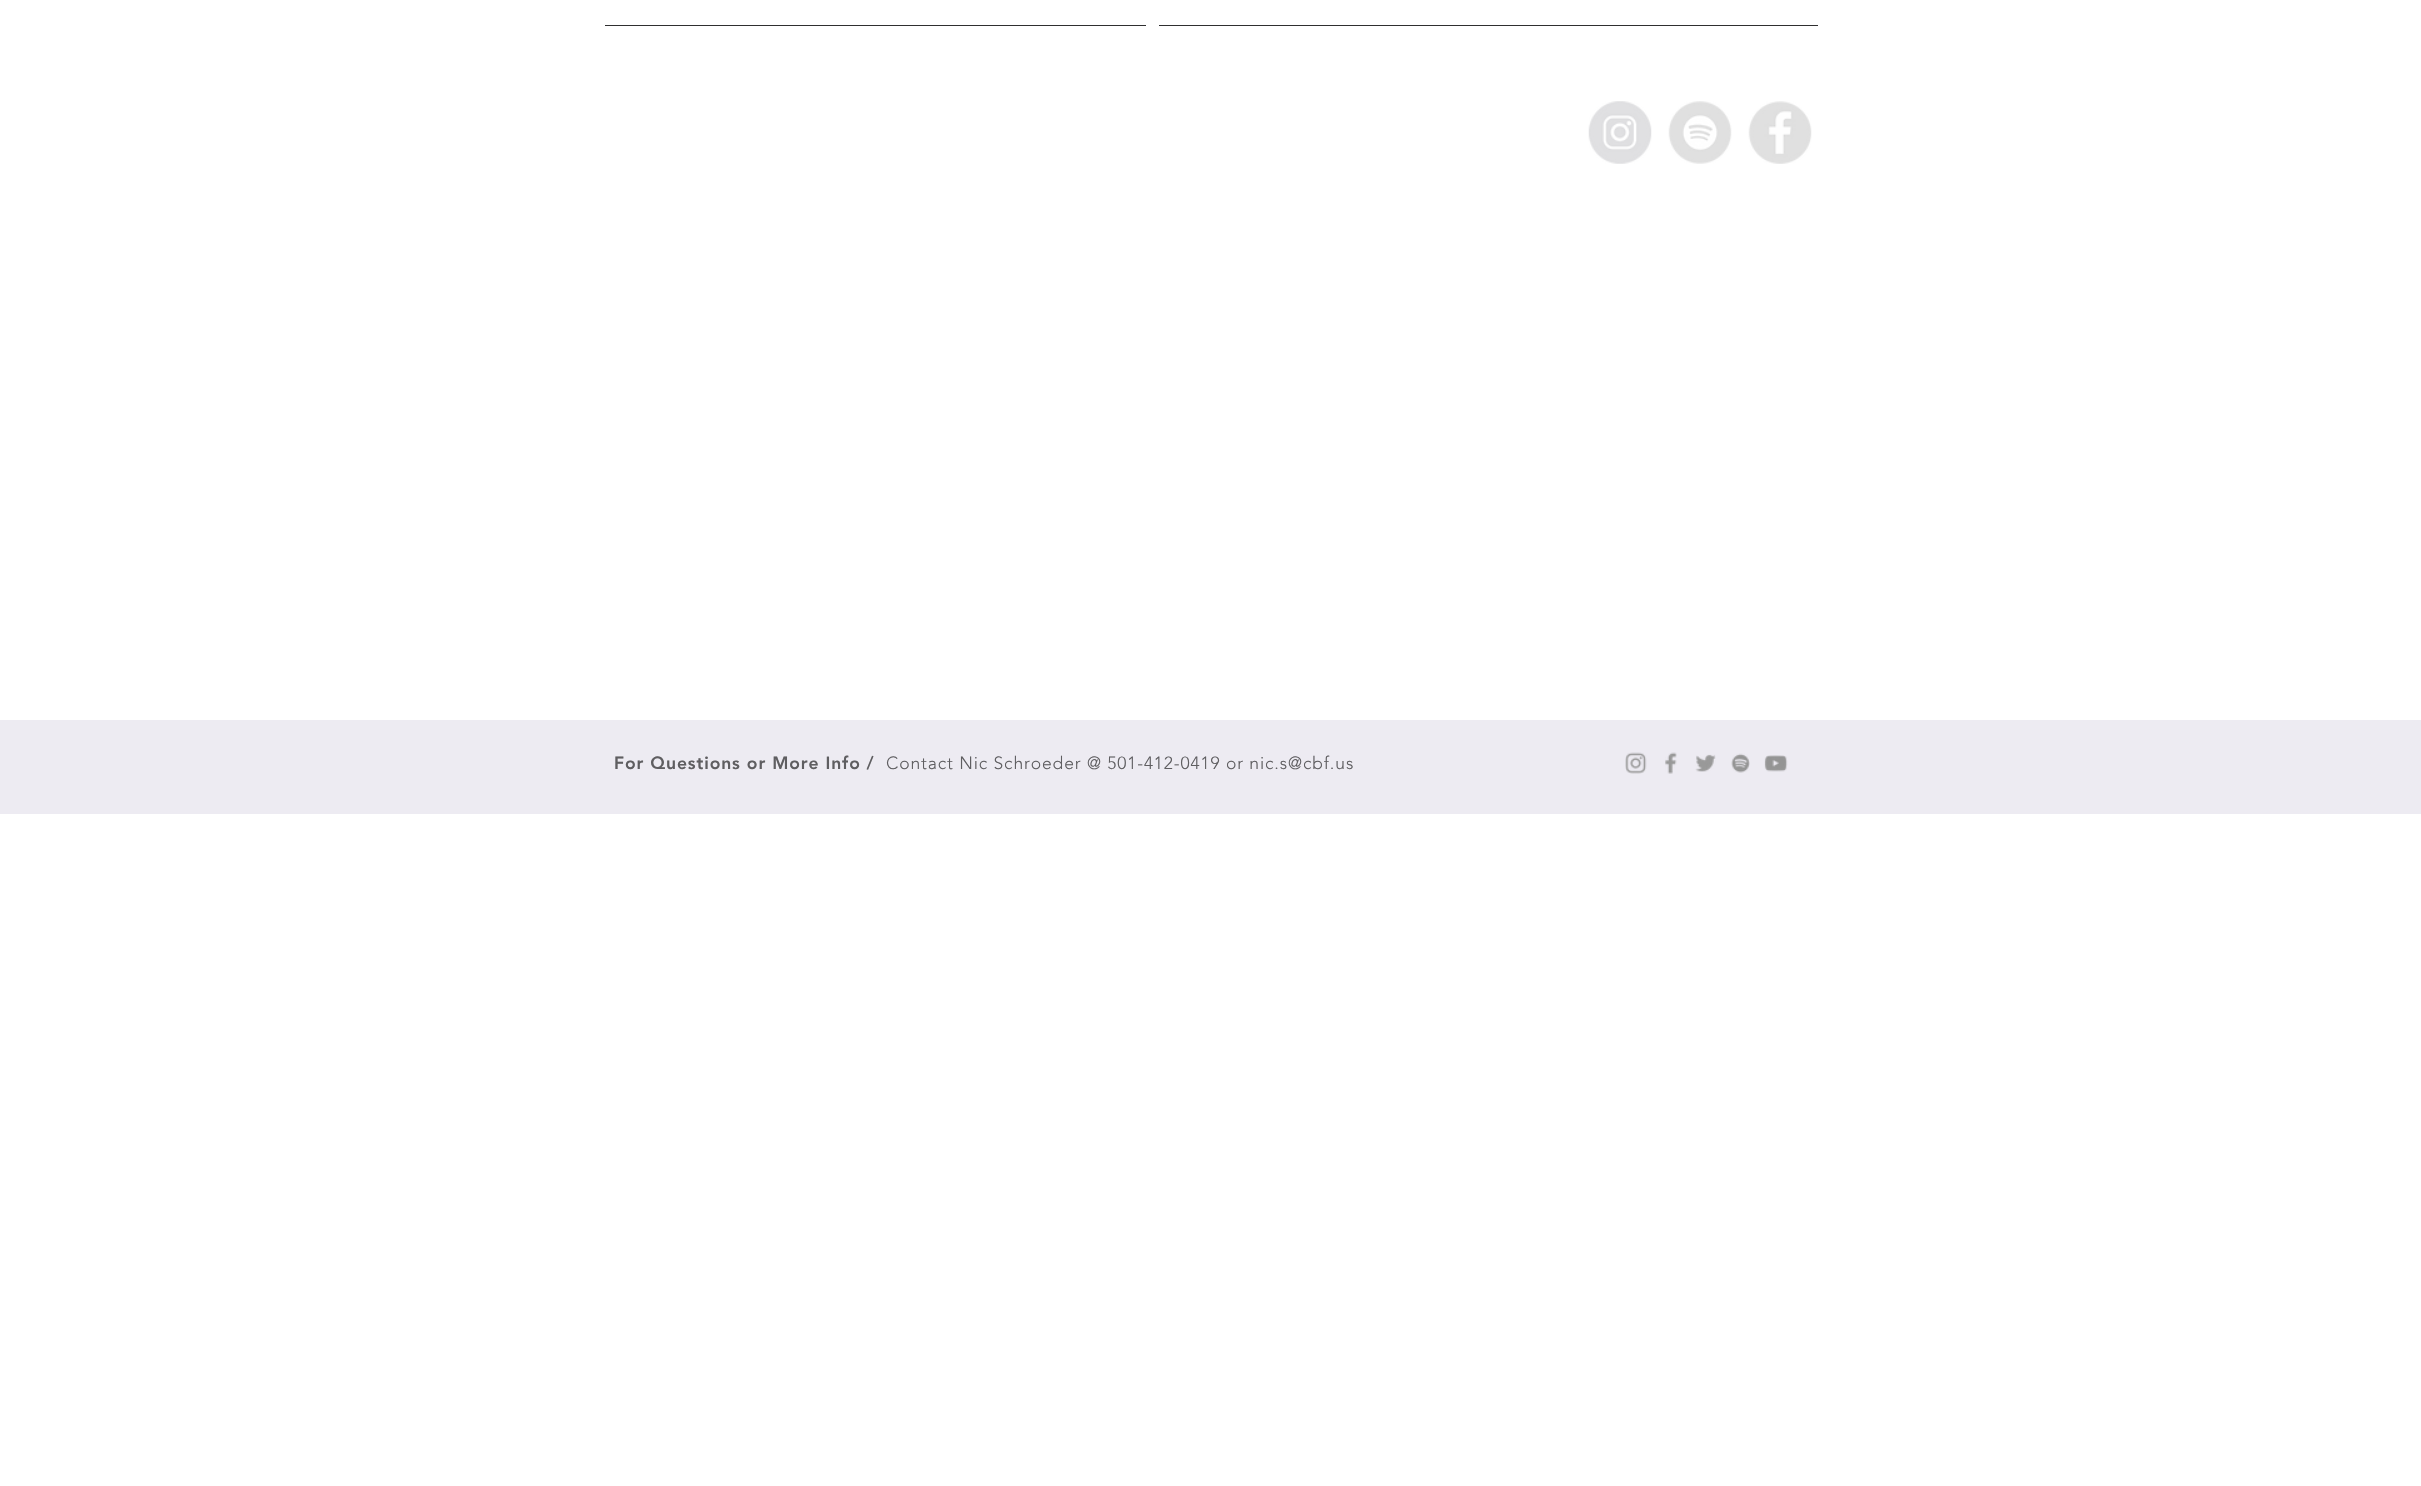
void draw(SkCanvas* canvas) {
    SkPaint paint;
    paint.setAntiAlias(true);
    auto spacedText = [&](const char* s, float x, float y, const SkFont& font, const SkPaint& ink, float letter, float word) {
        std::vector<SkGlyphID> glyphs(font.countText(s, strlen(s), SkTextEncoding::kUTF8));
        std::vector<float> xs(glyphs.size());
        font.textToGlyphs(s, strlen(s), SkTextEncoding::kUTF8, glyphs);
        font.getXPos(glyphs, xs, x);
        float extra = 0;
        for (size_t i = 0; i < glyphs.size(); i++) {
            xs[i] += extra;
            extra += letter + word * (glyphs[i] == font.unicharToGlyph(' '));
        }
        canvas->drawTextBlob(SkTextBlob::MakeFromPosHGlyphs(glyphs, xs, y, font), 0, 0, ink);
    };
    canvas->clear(0xFFFFFFFF);
    paint.setColor(0xFF2F2F30);
    canvas->drawRect(SkRect::MakeXYWH(605, 25, 541, 1), paint);
    canvas->drawRect(SkRect::MakeXYWH(1159, 25, 659, 1), paint);
    canvas->drawImageRect(SkImages::DeferredFromEncodedData(SkData::MakeFromFileName("img1.png")), SkRect::MakeXYWH(1588, 101, 64, 63), SkSamplingOptions());
    canvas->drawImageRect(SkImages::DeferredFromEncodedData(SkData::MakeFromFileName("img2.png")), SkRect::MakeXYWH(1668, 101, 64, 63), SkSamplingOptions());
    canvas->drawImageRect(SkImages::DeferredFromEncodedData(SkData::MakeFromFileName("img3.png")), SkRect::MakeXYWH(1748, 101, 64, 63), SkSamplingOptions());
    paint.setColor(0xFFEDEBF2);
    canvas->drawRect(SkRect::MakeXYWH(0, 720, 2421, 94), paint);
    SkFont font1(fontMgr->matchFamilyStyle("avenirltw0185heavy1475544", SkFontStyle(900, SkFontStyle::kNormal_Width, SkFontStyle::kUpright_Slant)), 17.5f);
    font1.setSubpixel(true);
    paint.setColor(0xFF5F5E61);
    spacedText("For Questions or More Info /", 614, 769, font1, paint, 0.88f, 0);
    SkFont font2(fontMgr->matchFamilyStyle("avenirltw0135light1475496", SkFontStyle(300, SkFontStyle::kNormal_Width, SkFontStyle::kUpright_Slant)), 17.5f);
    font2.setSubpixel(true);
    spacedText("Contact Nic Schroeder @ 501-412-0419 or nic.s@cbf.us", 886, 769, font2, paint, 0.88f, 0);
    canvas->drawImageRect(SkImages::DeferredFromEncodedData(SkData::MakeFromFileName("img4.png")), SkRect::MakeXYWH(1625, 752, 22, 22), SkSamplingOptions());
    canvas->drawImageRect(SkImages::DeferredFromEncodedData(SkData::MakeFromFileName("img5.png")), SkRect::MakeXYWH(1665, 752, 12, 22), SkSamplingOptions());
    canvas->drawImageRect(SkImages::DeferredFromEncodedData(SkData::MakeFromFileName("img6.png")), SkRect::MakeXYWH(1695, 754, 21, 18), SkSamplingOptions());
    canvas->drawImageRect(SkImages::DeferredFromEncodedData(SkData::MakeFromFileName("img7.png")), SkRect::MakeXYWH(1731, 753, 19, 20), SkSamplingOptions());
    canvas->drawImageRect(SkImages::DeferredFromEncodedData(SkData::MakeFromFileName("img8.png")), SkRect::MakeXYWH(1764, 755, 24, 17), SkSamplingOptions());
}
